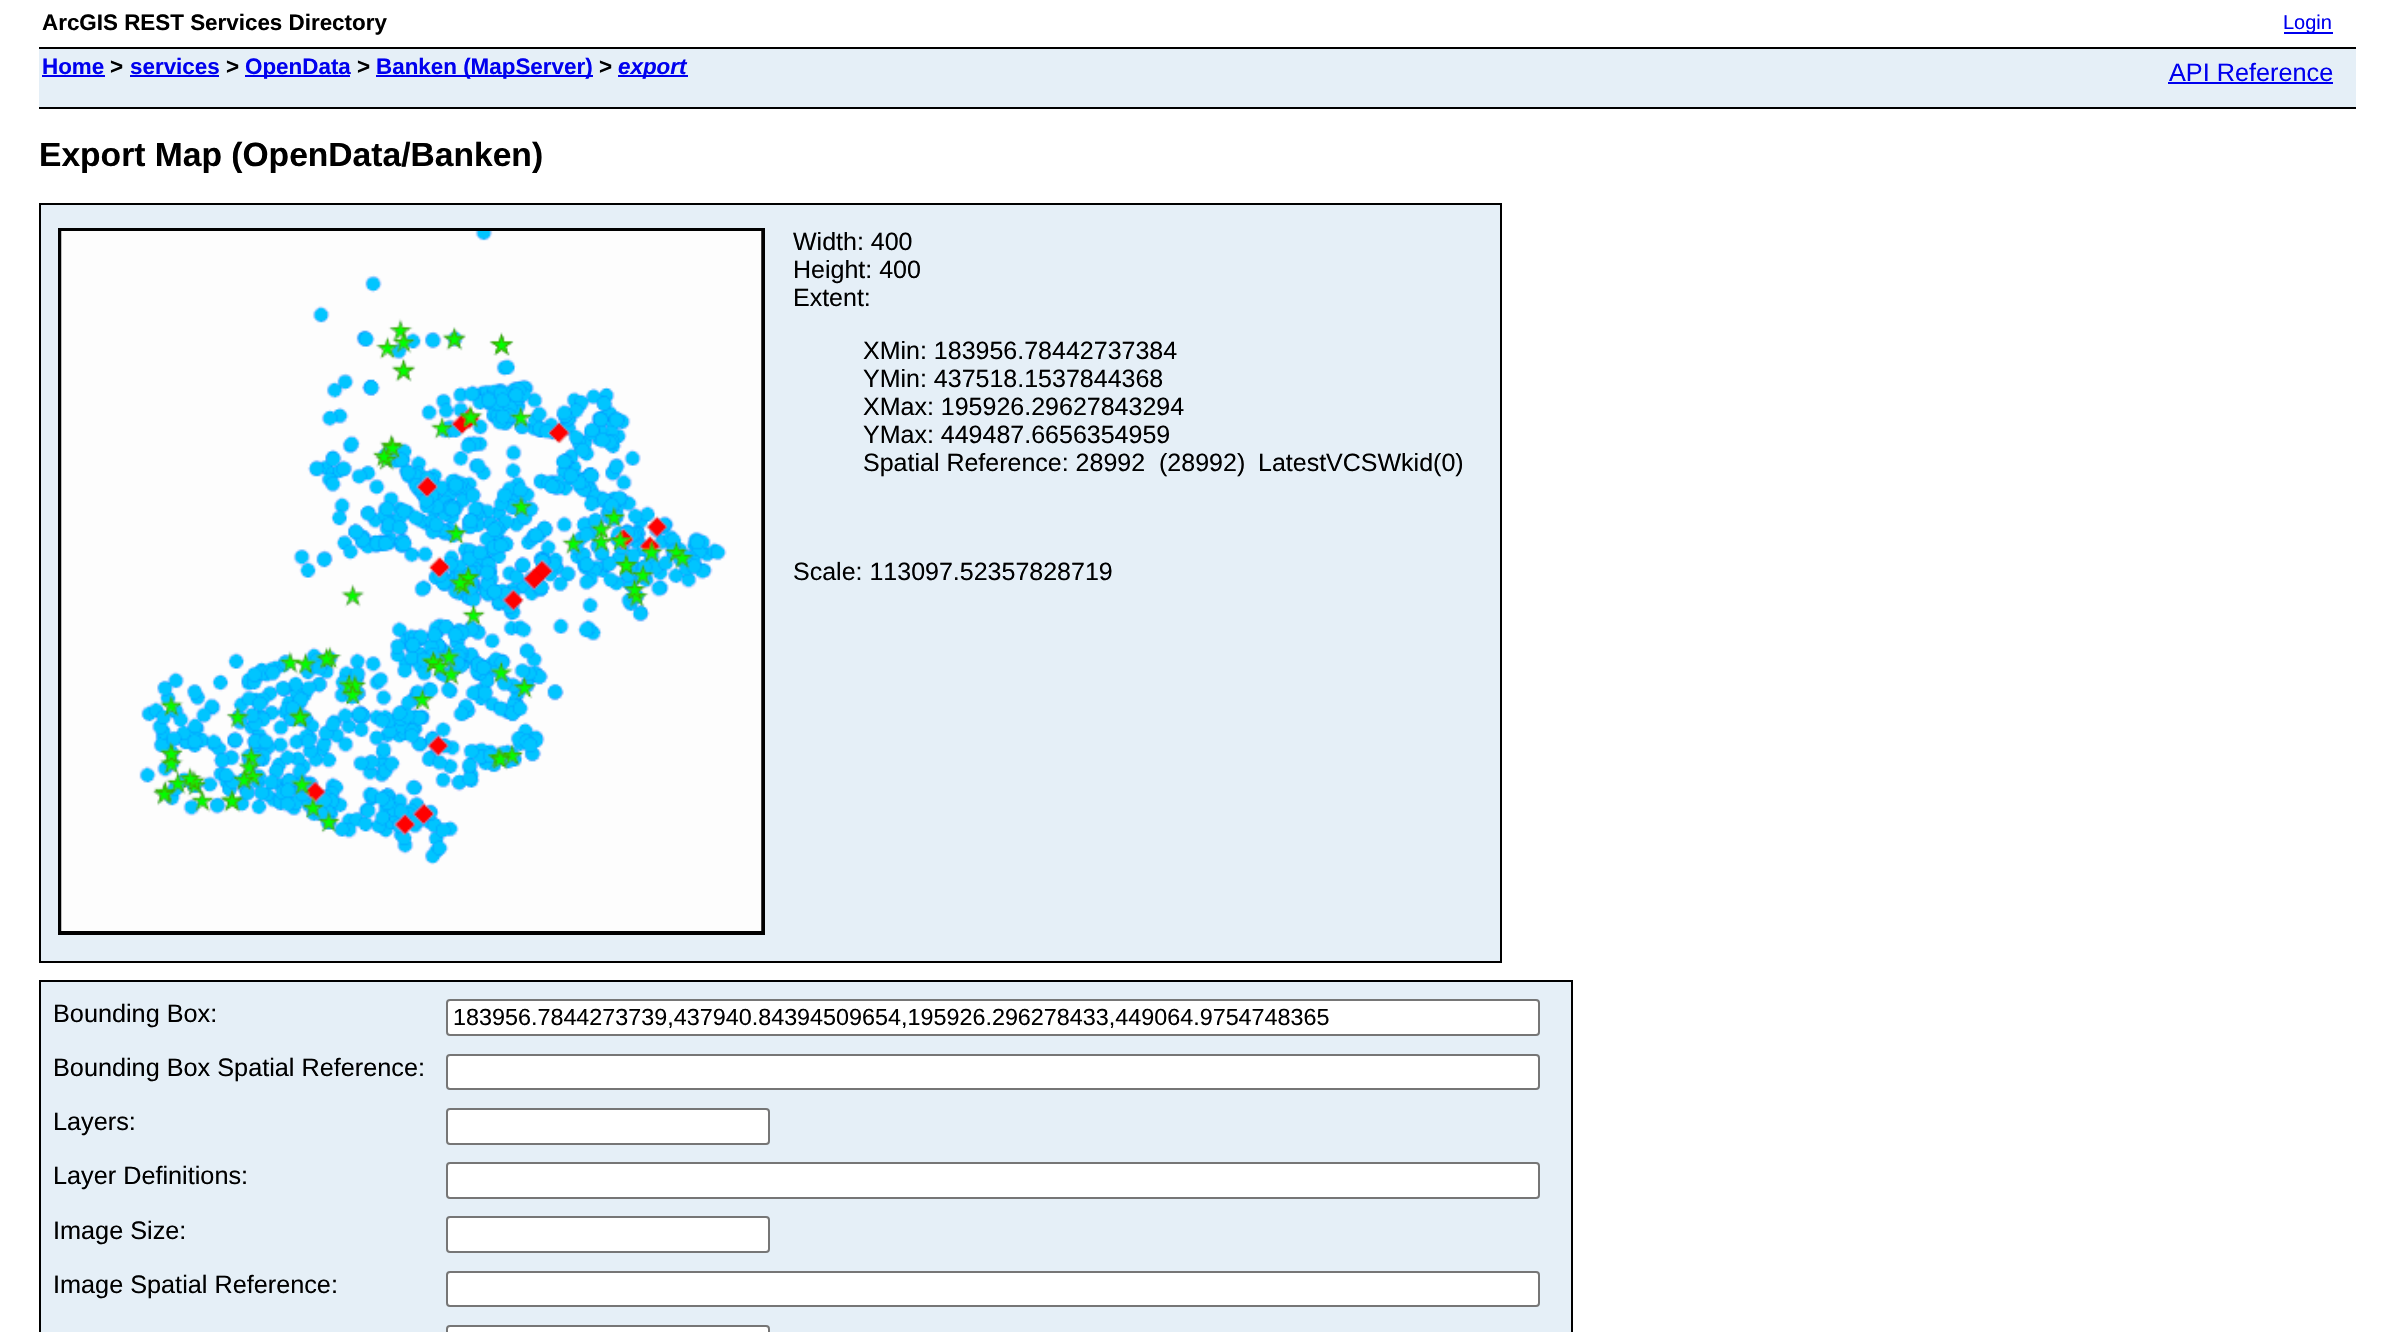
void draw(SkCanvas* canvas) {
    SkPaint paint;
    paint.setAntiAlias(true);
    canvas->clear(0xFFFFFFFF);
    SkFont font1(fontMgr->matchFamilyStyle("Liberation Sans", SkFontStyle::Bold()), 22.4f);
    font1.setSubpixel(true);
    paint.setColor(0xFF000000);
    canvas->drawString("ArcGIS REST Services Directory", 42, 30, font1, paint);
    paint.setColor(0xFF0000EE);
    canvas->drawRect(SkRect::MakeXYWH(2284, 32, 49, 2), paint);
    SkFont font2(fontMgr->matchFamilyStyle("Liberation Sans", SkFontStyle::Normal()), 20);
    font2.setSubpixel(true);
    canvas->drawString("Login", 2283, 29, font2, paint);
    paint.setColor(0xFFE5EFF7);
    canvas->drawRect(SkRect::MakeXYWH(39, 49, 2317, 58), paint);
    paint.setColor(0xFF000000);
    canvas->drawRect(SkRect::MakeXYWH(39, 47, 2317, 2), paint);
    canvas->drawRect(SkRect::MakeXYWH(39, 107, 2317, 2), paint);
    paint.setColor(0xFF0000EE);
    canvas->drawString("Home", 42, 74, font1, paint);
    canvas->drawRect(SkRect::MakeXYWH(42, 75, 63, 2), paint);
    paint.setColor(0xFF000000);
    canvas->drawString(">", 110, 74, font1, paint);
    paint.setColor(0xFF0000EE);
    canvas->drawString("services", 130, 74, font1, paint);
    canvas->drawRect(SkRect::MakeXYWH(130, 75, 89, 2), paint);
    paint.setColor(0xFF000000);
    canvas->drawString(">", 226, 74, font1, paint);
    paint.setColor(0xFF0000EE);
    canvas->drawRect(SkRect::MakeXYWH(245, 75, 105, 2), paint);
    canvas->drawString("OpenData", 245, 74, font1, paint);
    paint.setColor(0xFF000000);
    canvas->drawString(">", 357, 74, font1, paint);
    paint.setColor(0xFF0000EE);
    canvas->drawRect(SkRect::MakeXYWH(376, 75, 217, 2), paint);
    canvas->drawString("Banken (MapServer)", 376, 74, font1, paint);
    paint.setColor(0xFF000000);
    canvas->drawString(">", 599, 74, font1, paint);
    paint.setColor(0xFF0000EE);
    canvas->drawRect(SkRect::MakeXYWH(618, 75, 70, 2), paint);
    SkFont font3(fontMgr->matchFamilyStyle("Liberation Sans", SkFontStyle::BoldItalic()), 22.4f);
    font3.setSubpixel(true);
    canvas->drawString("export", 618, 74, font3, paint);
    SkFont font4(fontMgr->matchFamilyStyle("Liberation Sans", SkFontStyle::Normal()), 25.25f);
    font4.setSubpixel(true);
    canvas->drawString("API Reference", 2169, 81, font4, paint);
    canvas->drawRect(SkRect::MakeXYWH(2168, 82, 165, 2), paint);
    SkFont font5(fontMgr->matchFamilyStyle("Liberation Sans", SkFontStyle::Bold()), 33.6f);
    font5.setSubpixel(true);
    paint.setColor(0xFF000000);
    canvas->drawString("Export Map (OpenData/Banken)", 39, 166, font5, paint);
    paint.setColor(0xFFE5EFF7);
    canvas->drawRect(SkRect::MakeXYWH(40, 204, 1461, 758), paint);
    paint.setStyle(SkPaint::kStroke_Style);
    paint.setStrokeWidth(2);
    paint.setColor(0xFF000000);
    canvas->drawRect(SkRect::MakeXYWH(40, 204, 1461, 758), paint);
    paint.setStrokeWidth(4);
    canvas->drawRect(SkRect::MakeXYWH(60, 230, 703, 703), paint);
    canvas->drawImageRect(SkImages::DeferredFromEncodedData(SkData::MakeFromFileName("img1.png")), SkRect::MakeXYWH(61, 231, 701, 700), SkSamplingOptions());
    SkFont font6(fontMgr->matchFamilyStyle("Liberation Sans", SkFontStyle::Normal()), 25);
    font6.setSubpixel(true);
    paint.setStyle(SkPaint::kFill_Style);
    canvas->drawString("Width: 400", 793, 250, font6, paint);
    canvas->drawString("Height: 400", 793, 278, font6, paint);
    canvas->drawString("Extent:", 793, 306, font6, paint);
    canvas->drawString("XMin: 183956.78442737384", 863, 359, font6, paint);
    canvas->drawString("YMin: 437518.1537844368", 863, 387, font6, paint);
    canvas->drawString("XMax: 195926.29627843294", 863, 415, font6, paint);
    canvas->drawString("YMax: 449487.6656354959", 863, 443, font6, paint);
    canvas->drawString("Spatial Reference: 28992  (28992)", 863, 471, font6, paint);
    canvas->drawString("LatestVCSWkid(0)", 1258, 471, font6, paint);
    canvas->drawString("Scale: 113097.52357828719", 793, 580, font6, paint);
    paint.setColor(0xFFE5EFF7);
    canvas->drawRect(SkRect::MakeXYWH(40, 981, 1532, 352), paint);
    paint.setStyle(SkPaint::kStroke_Style);
    paint.setStrokeWidth(2);
    paint.setColor(0xFF000000);
    canvas->drawRect(SkRect::MakeXYWH(40, 981, 1532, 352), paint);
    paint.setStyle(SkPaint::kFill_Style);
    canvas->drawString("Bounding Box:", 53, 1022, font4, paint);
    paint.setColor(0xFFFFFFFF);
    canvas->drawRoundRect(SkRect::MakeXYWH(447, 1000, 1092, 35), 3, 3, paint);
    paint.setStyle(SkPaint::kStroke_Style);
    paint.setColor(0xFF767676);
    canvas->drawRoundRect(SkRect::MakeXYWH(447, 1000, 1092, 35), 3, 3, paint);
    SkFont font7(fontMgr->matchFamilyStyle("Liberation Sans", SkFontStyle::Normal()), 23.35f);
    font7.setSubpixel(true);
    paint.setStyle(SkPaint::kFill_Style);
    paint.setColor(0xFF000000);
    canvas->drawString("183956.7844273739,437940.84394509654,195926.296278433,449064.9754748365", 453, 1025, font7, paint);
    canvas->drawString("Bounding Box Spatial Reference:", 53, 1076, font4, paint);
    paint.setColor(0xFFFFFFFF);
    canvas->drawRoundRect(SkRect::MakeXYWH(447, 1055, 1092, 34), 3, 3, paint);
    paint.setStyle(SkPaint::kStroke_Style);
    paint.setColor(0xFF767676);
    canvas->drawRoundRect(SkRect::MakeXYWH(447, 1055, 1092, 34), 3, 3, paint);
    paint.setStyle(SkPaint::kFill_Style);
    paint.setColor(0xFF000000);
    canvas->drawString("Layers:", 53, 1130, font4, paint);
    paint.setColor(0xFFFFFFFF);
    canvas->drawRoundRect(SkRect::MakeXYWH(447, 1109, 322, 35), 3, 3, paint);
    paint.setStyle(SkPaint::kStroke_Style);
    paint.setColor(0xFF767676);
    canvas->drawRoundRect(SkRect::MakeXYWH(447, 1109, 322, 35), 3, 3, paint);
    paint.setStyle(SkPaint::kFill_Style);
    paint.setColor(0xFF000000);
    canvas->drawString("Layer Definitions:", 53, 1184, font4, paint);
    paint.setColor(0xFFFFFFFF);
    canvas->drawRoundRect(SkRect::MakeXYWH(447, 1163, 1092, 35), 3, 3, paint);
    paint.setStyle(SkPaint::kStroke_Style);
    paint.setColor(0xFF767676);
    canvas->drawRoundRect(SkRect::MakeXYWH(447, 1163, 1092, 35), 3, 3, paint);
    paint.setStyle(SkPaint::kFill_Style);
    paint.setColor(0xFF000000);
    canvas->drawString("Image Size:", 53, 1239, font4, paint);
    paint.setColor(0xFFFFFFFF);
    canvas->drawRoundRect(SkRect::MakeXYWH(447, 1217, 322, 35), 3, 3, paint);
    paint.setStyle(SkPaint::kStroke_Style);
    paint.setColor(0xFF767676);
    canvas->drawRoundRect(SkRect::MakeXYWH(447, 1217, 322, 35), 3, 3, paint);
    paint.setStyle(SkPaint::kFill_Style);
    paint.setColor(0xFF000000);
    canvas->drawString("Image Spatial Reference:", 53, 1293, font4, paint);
    paint.setColor(0xFFFFFFFF);
    canvas->drawRoundRect(SkRect::MakeXYWH(447, 1272, 1092, 34), 3, 3, paint);
    paint.setStyle(SkPaint::kStroke_Style);
    paint.setColor(0xFF767676);
    canvas->drawRoundRect(SkRect::MakeXYWH(447, 1272, 1092, 34), 3, 3, paint);
    paint.setStyle(SkPaint::kFill_Style);
    paint.setColor(0xFFFFFFFF);
    canvas->drawRoundRect(SkRect::MakeXYWH(447, 1326, 322, 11), 3, 3, paint);
    paint.setStyle(SkPaint::kStroke_Style);
    paint.setColor(0xFF767676);
    canvas->drawRoundRect(SkRect::MakeXYWH(447, 1326, 322, 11), 3, 3, paint);
}
